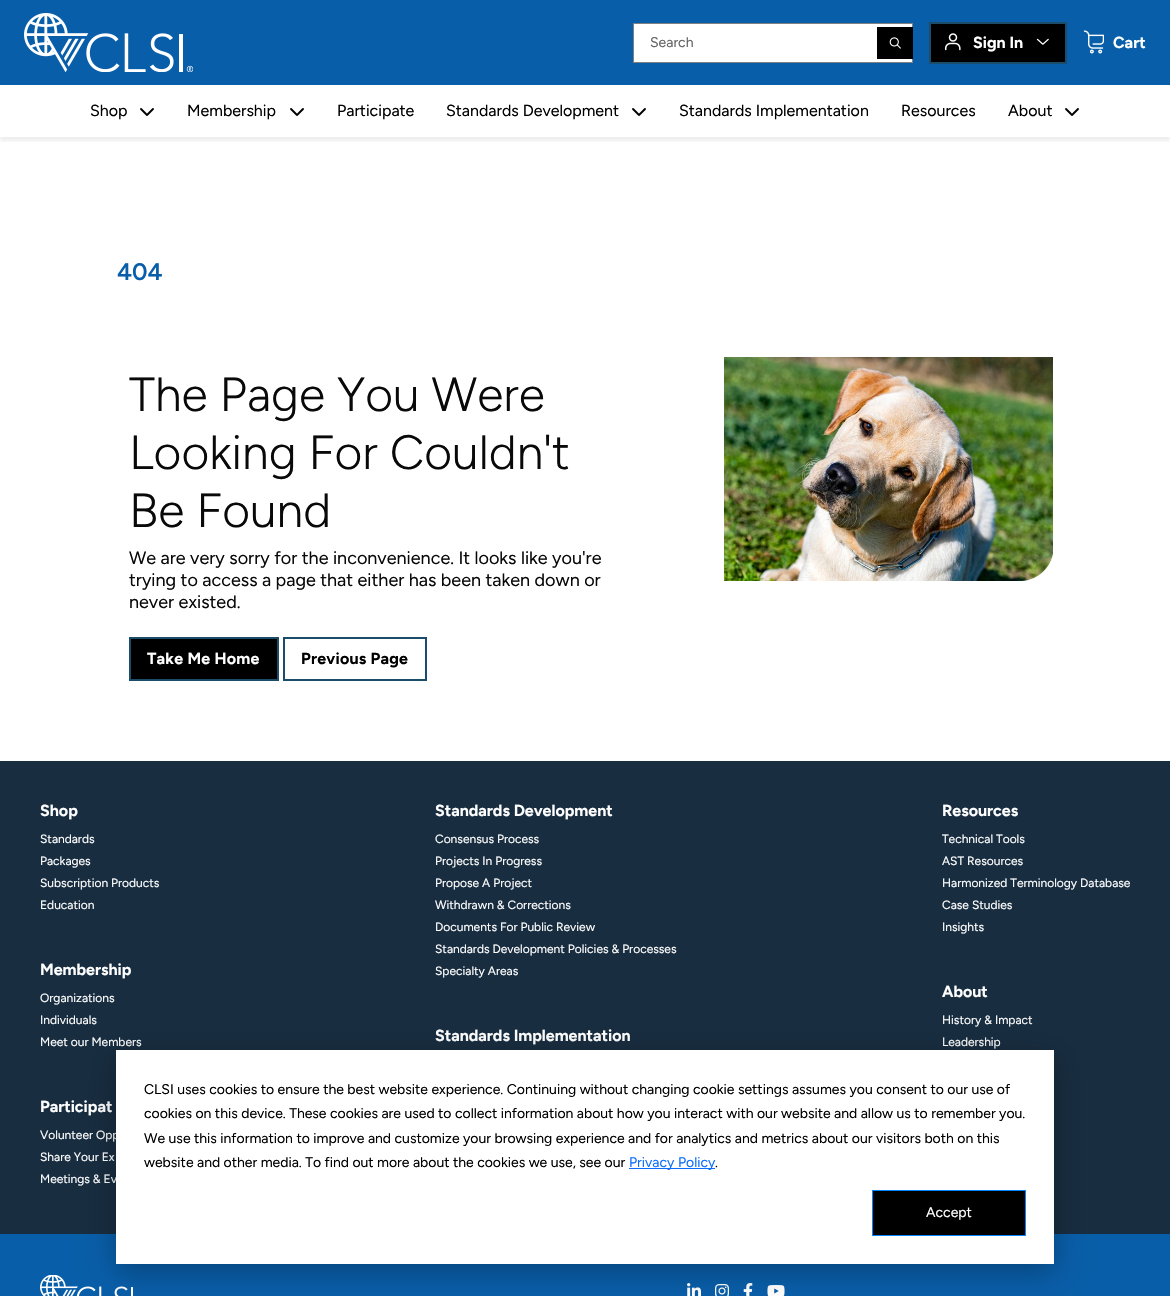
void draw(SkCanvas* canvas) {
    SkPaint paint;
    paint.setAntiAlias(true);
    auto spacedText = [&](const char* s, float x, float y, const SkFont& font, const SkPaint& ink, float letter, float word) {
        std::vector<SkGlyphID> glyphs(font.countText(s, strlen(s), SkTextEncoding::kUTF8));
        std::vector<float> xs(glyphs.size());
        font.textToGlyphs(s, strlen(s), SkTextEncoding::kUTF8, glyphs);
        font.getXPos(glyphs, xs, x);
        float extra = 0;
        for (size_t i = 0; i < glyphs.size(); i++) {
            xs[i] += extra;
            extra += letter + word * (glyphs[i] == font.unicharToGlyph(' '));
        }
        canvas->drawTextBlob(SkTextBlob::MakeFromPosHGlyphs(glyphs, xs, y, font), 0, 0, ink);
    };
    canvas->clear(0xFFFFFFFF);
    canvas->save();
    canvas->clipRect(SkRect::MakeXYWH(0, 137, 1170, 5));
    paint.setColor(0x12000000);
    paint.setMaskFilter(SkMaskFilter::MakeBlur(kNormal_SkBlurStyle, 2));
    canvas->drawRect(SkRect::MakeXYWH(0, 4, 1170, 137), paint);
    paint.setMaskFilter(nullptr);
    canvas->restore();
    paint.setColor(0xFF095EA9);
    canvas->drawRect(SkRect::MakeXYWH(0, 0, 1170, 85), paint);
    canvas->drawImageRect(SkImages::DeferredFromEncodedData(SkData::MakeFromFileName("img1.png")), SkRect::MakeXYWH(24, 13, 169, 59), SkSamplingOptions());
    paint.setColor(0xFFFFFFFF);
    canvas->drawRect(SkRect::MakeXYWH(633.5f, 23.5f, 279, 39), paint);
    paint.setStyle(SkPaint::kStroke_Style);
    paint.setStrokeWidth(1);
    paint.setColor(0xFF808080);
    canvas->drawRect(SkRect::MakeXYWH(633.5f, 23.5f, 279, 39), paint);
    SkFont font1(fontMgr->matchFamilyStyle("Figtree", SkFontStyle::Normal()), 14);
    font1.setSubpixel(true);
    paint.setStyle(SkPaint::kFill_Style);
    paint.setColor(0xFF656464);
    canvas->drawString("Search", 650, 47, font1, paint);
    paint.setColor(0xFF000000);
    canvas->drawRect(SkRect::MakeXYWH(877, 27, 36, 32), paint);
    canvas->drawImageRect(SkImages::DeferredFromEncodedData(SkData::MakeFromFileName("img2.png")), SkRect::MakeXYWH(889, 37, 12, 12), SkSamplingOptions());
    canvas->drawRect(SkRect::MakeXYWH(930, 23, 136, 40), paint);
    paint.setStyle(SkPaint::kStroke_Style);
    paint.setStrokeWidth(2);
    paint.setColor(0xFF1B4D6B);
    canvas->drawRect(SkRect::MakeXYWH(930, 23, 136, 40), paint);
    canvas->drawImageRect(SkImages::DeferredFromEncodedData(SkData::MakeFromFileName("img3.png")), SkRect::MakeXYWH(944, 33, 17, 18), SkSamplingOptions());
    SkFont font2(fontMgr->matchFamilyStyle("Figtree", SkFontStyle::Bold()), 16);
    font2.setSubpixel(true);
    paint.setStyle(SkPaint::kFill_Style);
    paint.setColor(0xFFFFFFFF);
    canvas->drawString("Sign In", 973, 48, font2, paint);
    canvas->drawImageRect(SkImages::DeferredFromEncodedData(SkData::MakeFromFileName("img4.png")), SkRect::MakeXYWH(1036, 38, 13, 7), SkSamplingOptions());
    canvas->drawImageRect(SkImages::DeferredFromEncodedData(SkData::MakeFromFileName("img5.png")), SkRect::MakeXYWH(1083, 30, 21, 24), SkSamplingOptions());
    canvas->drawString("Cart", 1113, 48, font2, paint);
    SkFont font3(fontMgr->matchFamilyStyle("Figtree", SkFontStyle::Normal()), 16);
    font3.setSubpixel(true);
    paint.setColor(0xFF000000);
    canvas->drawString("Shop", 90, 116, font3, paint);
    canvas->drawImageRect(SkImages::DeferredFromEncodedData(SkData::MakeFromFileName("img6.png")), SkRect::MakeXYWH(140, 108, 14, 8), SkSamplingOptions());
    canvas->drawString("Membership", 187, 116, font3, paint);
    canvas->drawImageRect(SkImages::DeferredFromEncodedData(SkData::MakeFromFileName("img6.png")), SkRect::MakeXYWH(290, 108, 14, 8), SkSamplingOptions());
    canvas->drawString("Participate", 337, 116, font3, paint);
    canvas->drawString("Standards Development", 446, 116, font3, paint);
    canvas->drawImageRect(SkImages::DeferredFromEncodedData(SkData::MakeFromFileName("img6.png")), SkRect::MakeXYWH(632, 108, 14, 8), SkSamplingOptions());
    canvas->drawString("Standards Implementation", 679, 116, font3, paint);
    canvas->drawString("Resources", 901, 116, font3, paint);
    canvas->drawString("About", 1008, 116, font3, paint);
    canvas->drawImageRect(SkImages::DeferredFromEncodedData(SkData::MakeFromFileName("img6.png")), SkRect::MakeXYWH(1065, 108, 14, 8), SkSamplingOptions());
    SkFont font4(fontMgr->matchFamilyStyle("Figtree", SkFontStyle(600, SkFontStyle::kNormal_Width, SkFontStyle::kUpright_Slant)), 24);
    font4.setSubpixel(true);
    paint.setColor(0xFF095EA9);
    canvas->drawString("404", 117, 280, font4, paint);
    SkFont font5(fontMgr->matchFamilyStyle("Figtree", SkFontStyle(300, SkFontStyle::kNormal_Width, SkFontStyle::kUpright_Slant)), 48);
    font5.setSubpixel(true);
    paint.setColor(0xFF090909);
    canvas->drawString("The Page You Were", 129, 411, font5, paint);
    canvas->drawString("Looking For Couldn't", 129, 469, font5, paint);
    canvas->drawString("Be Found", 129, 527, font5, paint);
    SkFont font6(fontMgr->matchFamilyStyle("Figtree", SkFontStyle::Normal()), 18);
    font6.setSubpixel(true);
    canvas->drawString("We are very sorry for the inconvenience. It looks like you're", 129, 564, font6, paint);
    canvas->drawString("trying to access a page that either has been taken down or", 129, 586, font6, paint);
    canvas->drawString("never existed.", 129, 608, font6, paint);
    paint.setColor(0xFF000000);
    canvas->drawRect(SkRect::MakeXYWH(130, 638, 148, 42), paint);
    paint.setStyle(SkPaint::kStroke_Style);
    paint.setColor(0xFF1B4D6B);
    canvas->drawRect(SkRect::MakeXYWH(130, 638, 148, 42), paint);
    paint.setStyle(SkPaint::kFill_Style);
    paint.setColor(0xFFFFFFFF);
    spacedText("Take Me Home", 147, 664, font2, paint, 0.25f, 0);
    paint.setStyle(SkPaint::kStroke_Style);
    paint.setColor(0xFF1B4D6B);
    canvas->drawRect(SkRect::MakeXYWH(284, 638, 142, 42), paint);
    paint.setStyle(SkPaint::kFill_Style);
    paint.setColor(0xFF000000);
    spacedText("Previous Page", 301, 664, font2, paint, 0.25f, 0);
    canvas->drawImageRect(SkImages::DeferredFromEncodedData(SkData::MakeFromFileName("img7.png")), SkRect::MakeXYWH(724, 357, 329, 224), SkSamplingOptions());
    paint.setColor(0xFF182D40);
    canvas->drawRect(SkRect::MakeXYWH(0, 761, 1170, 473), paint);
    paint.setColor(0xFFFFFFFF);
    canvas->drawString("Shop", 40, 816, font2, paint);
    SkFont font7(fontMgr->matchFamilyStyle("Figtree", SkFontStyle::Normal()), 12);
    font7.setSubpixel(true);
    canvas->drawString("Standards", 40, 843, font7, paint);
    canvas->drawString("Packages", 40, 865, font7, paint);
    canvas->drawString("Subscription Products", 40, 887, font7, paint);
    canvas->drawString("Education", 40, 909, font7, paint);
    canvas->drawString("Standards Development", 435, 816, font2, paint);
    canvas->drawString("Consensus Process", 435, 843, font7, paint);
    canvas->drawString("Projects In Progress", 435, 865, font7, paint);
    canvas->drawString("Propose A Project", 435, 887, font7, paint);
    canvas->drawString("Withdrawn & Corrections", 435, 909, font7, paint);
    canvas->drawString("Documents For Public Review", 435, 931, font7, paint);
    canvas->drawString("Standards Development Policies & Processes", 435, 953, font7, paint);
    canvas->drawString("Specialty Areas", 435, 975, font7, paint);
    canvas->drawString("Resources", 942, 816, font2, paint);
    canvas->drawString("Technical Tools", 942, 843, font7, paint);
    canvas->drawString("AST Resources", 942, 865, font7, paint);
    canvas->drawString("Harmonized Terminology Database", 942, 887, font7, paint);
    canvas->drawString("Case Studies", 942, 909, font7, paint);
    canvas->drawString("Insights", 942, 931, font7, paint);
    canvas->drawString("Membership", 40, 975, font2, paint);
    canvas->drawString("Organizations", 40, 1002, font7, paint);
    canvas->drawString("Individuals", 40, 1024, font7, paint);
    canvas->drawString("Meet our Members", 40, 1046, font7, paint);
    canvas->drawString("Standards Implementation", 435, 1041, font2, paint);
    canvas->drawString("About", 942, 997, font2, paint);
    canvas->drawString("History & Impact", 942, 1024, font7, paint);
    canvas->drawString("Leadership", 942, 1046, font7, paint);
    canvas->drawString("Participat", 40, 1112, font2, paint);
    canvas->drawString("Volunteer Opp", 40, 1139, font7, paint);
    canvas->drawString("Share Your Ex", 40, 1161, font7, paint);
    canvas->drawString("Meetings & Ev", 40, 1183, font7, paint);
    paint.setColor(0xFF095EA9);
    canvas->drawRect(SkRect::MakeXYWH(0, 1234, 1170, 62), paint);
    canvas->drawImageRect(SkImages::DeferredFromEncodedData(SkData::MakeFromFileName("img8.png")), SkRect::MakeXYWH(40, 1275, 93, 21), SkSamplingOptions());
    canvas->drawImageRect(SkImages::DeferredFromEncodedData(SkData::MakeFromFileName("img9.png")), SkRect::MakeXYWH(687, 1283, 14, 13), SkSamplingOptions());
    canvas->drawImageRect(SkImages::DeferredFromEncodedData(SkData::MakeFromFileName("img10.png")), SkRect::MakeXYWH(715, 1284, 14, 12), SkSamplingOptions());
    canvas->drawImageRect(SkImages::DeferredFromEncodedData(SkData::MakeFromFileName("img11.png")), SkRect::MakeXYWH(743, 1283, 10, 13), SkSamplingOptions());
    canvas->drawImageRect(SkImages::DeferredFromEncodedData(SkData::MakeFromFileName("img12.png")), SkRect::MakeXYWH(767, 1285, 18, 11), SkSamplingOptions());
    paint.setColor(0x47000000);
    paint.setMaskFilter(SkMaskFilter::MakeBlur(kNormal_SkBlurStyle, 14));
    canvas->drawRect(SkRect::MakeXYWH(116, 1058, 938, 214), paint);
    paint.setMaskFilter(nullptr);
    paint.setColor(0xFFFFFFFF);
    canvas->drawRect(SkRect::MakeXYWH(116, 1050, 938, 214), paint);
    paint.setColor(0xFF000000);
    canvas->drawString("CLSI uses cookies to ensure the best website experience. Continuing without changing cookie settings assumes you consent to our use of", 144, 1094, font1, paint);
    canvas->drawString("cookies on this device. These cookies are used to collect information about how you interact with our website and allow us to remember you.", 144, 1118, font1, paint);
    canvas->drawString("We use this information to improve and customize your browsing experience and for analytics and metrics about our visitors both on this", 144, 1143, font1, paint);
    canvas->drawString("website and other media. To find out more about the cookies we use, see our", 144, 1167, font1, paint);
    paint.setColor(0xFF0D6EFD);
    canvas->drawRect(SkRect::MakeXYWH(629, 1168, 86, 1), paint);
    canvas->drawString("Privacy Policy", 629, 1167, font1, paint);
    paint.setColor(0xFF000000);
    canvas->drawString(".", 715, 1167, font1, paint);
    canvas->drawRect(SkRect::MakeXYWH(872.5f, 1190.5f, 153, 45), paint);
    paint.setStyle(SkPaint::kStroke_Style);
    paint.setStrokeWidth(1);
    paint.setColor(0xFF0087FF);
    canvas->drawRect(SkRect::MakeXYWH(872.5f, 1190.5f, 153, 45), paint);
    paint.setStyle(SkPaint::kFill_Style);
    paint.setColor(0xFFFFFFFF);
    canvas->drawString("Accept", 926, 1217, font1, paint);
}
